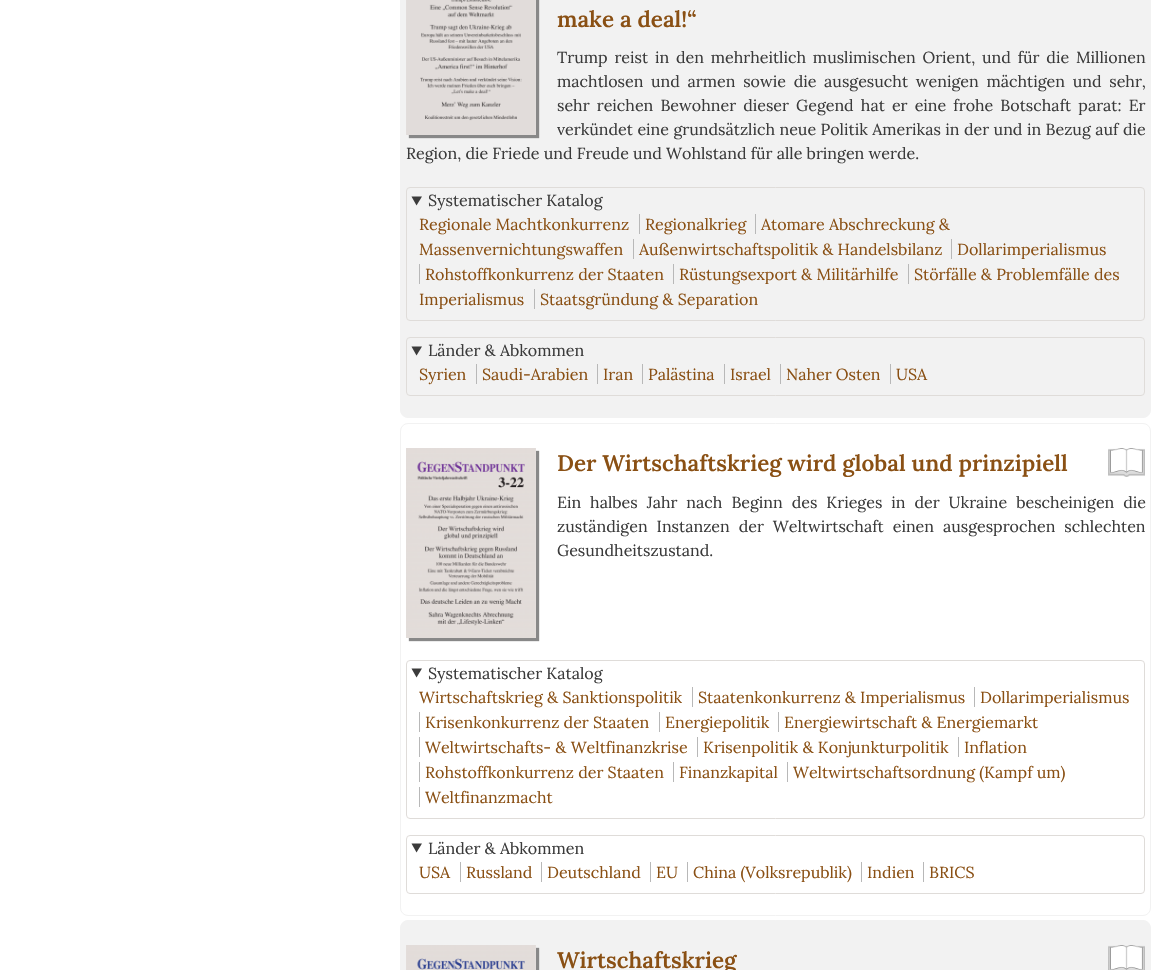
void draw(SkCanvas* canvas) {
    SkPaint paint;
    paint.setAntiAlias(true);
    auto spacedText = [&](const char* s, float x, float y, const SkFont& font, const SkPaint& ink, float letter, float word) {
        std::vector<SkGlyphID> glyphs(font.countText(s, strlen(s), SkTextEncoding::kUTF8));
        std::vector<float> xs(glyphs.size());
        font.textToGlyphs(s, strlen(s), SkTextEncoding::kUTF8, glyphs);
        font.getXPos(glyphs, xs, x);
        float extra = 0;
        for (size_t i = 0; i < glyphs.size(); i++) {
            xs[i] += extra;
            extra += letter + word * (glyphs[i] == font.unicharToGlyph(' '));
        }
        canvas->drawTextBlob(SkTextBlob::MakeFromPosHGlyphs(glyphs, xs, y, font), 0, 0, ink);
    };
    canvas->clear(0xFFFFFFFF);
    paint.setColor(0xFFF2F2F2);
    canvas->drawRoundRect(SkRect::MakeXYWH(400.5f, -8.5f, 750, 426), 7.5f, 7.5f, paint);
    paint.setStyle(SkPaint::kStroke_Style);
    paint.setStrokeWidth(1);
    canvas->drawRoundRect(SkRect::MakeXYWH(400.5f, -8.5f, 750, 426), 7.5f, 7.5f, paint);
    paint.setStyle(SkPaint::kFill_Style);
    paint.setColor(0xFF888888);
    paint.setMaskFilter(SkMaskFilter::MakeBlur(kNormal_SkBlurStyle, 0.5f));
    canvas->drawRect(SkRect::MakeXYWH(409, -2, 130, 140), paint);
    paint.setMaskFilter(nullptr);
    canvas->drawImageRect(SkImages::DeferredFromEncodedData(SkData::MakeFromFileName("img1.png")), SkRect::MakeXYWH(406, 0, 130, 135), SkSamplingOptions());
    SkFont font1(fontMgr->matchFamilyStyle("Lora", SkFontStyle(600, SkFontStyle::kNormal_Width, SkFontStyle::kUpright_Slant)), 22.4f);
    font1.setSubpixel(true);
    paint.setColor(0xFF8A5014);
    canvas->drawString("make a deal!“", 557, 27, font1, paint);
    SkFont font2(fontMgr->matchFamilyStyle("Lora", SkFontStyle::Normal()), 16);
    font2.setSubpixel(true);
    paint.setColor(0xFF3B3B3B);
    spacedText("Trump reist in den mehrheitlich muslimischen Orient, und für die Millionen", 557, 63, font2, paint, 0, 2.6f);
    spacedText("machtlosen und armen sowie die ausgesucht wenigen mächtigen und sehr,", 557, 87, font2, paint, 0, 3.5f);
    spacedText("sehr reichen Bewohner dieser Gegend hat er eine frohe Botschaft parat: Er", 557, 111, font2, paint, 0, 2.9f);
    spacedText("verkündet eine grundsätzlich neue Politik Amerikas in der und in Bezug auf die", 557, 135, font2, paint, 0, 0.25f);
    canvas->drawString("Region, die Friede und Freude und Wohlstand für alle bringen werde.", 406, 159, font2, paint);
    paint.setStyle(SkPaint::kStroke_Style);
    paint.setColor(0xFFDFDCD9);
    canvas->drawRoundRect(SkRect::MakeXYWH(406.5f, 187.5f, 738, 133), 3.5f, 3.5f, paint);
    paint.setStyle(SkPaint::kFill_Style);
    paint.setColor(0xFF3B3B3B);
    canvas->drawPath(SkPathBuilder().moveTo(411.5f, 196.5f).lineTo(422, 196.5f).lineTo(416.5f, 205.5f).close().detach(), paint);
    canvas->drawString("Systematischer Katalog", 428, 206, font2, paint);
    paint.setColor(0xFF8A5014);
    canvas->drawString("Regionale Machtkonkurrenz", 419, 230, font2, paint);
    canvas->drawString("Regionalkrieg", 645, 230, font2, paint);
    paint.setColor(0xFFB8B8B8);
    canvas->drawRect(SkRect::MakeXYWH(639, 214, 1, 20), paint);
    paint.setColor(0xFF8A5014);
    canvas->drawString("Atomare Abschreckung &", 761, 230, font2, paint);
    paint.setColor(0xFFB8B8B8);
    canvas->drawRect(SkRect::MakeXYWH(755, 214, 1, 20), paint);
    paint.setColor(0xFF8A5014);
    canvas->drawString("Massenvernichtungswaffen", 419, 255, font2, paint);
    canvas->drawString("Außenwirtschaftspolitik & Handelsbilanz", 639, 255, font2, paint);
    paint.setColor(0xFFB8B8B8);
    canvas->drawRect(SkRect::MakeXYWH(633, 239, 1, 20), paint);
    paint.setColor(0xFF8A5014);
    canvas->drawString("Dollarimperialismus", 957, 255, font2, paint);
    paint.setColor(0xFFB8B8B8);
    canvas->drawRect(SkRect::MakeXYWH(951, 239, 1, 20), paint);
    paint.setColor(0xFF8A5014);
    canvas->drawString("Rohstoffkonkurrenz der Staaten", 425, 280, font2, paint);
    paint.setColor(0xFFB8B8B8);
    canvas->drawRect(SkRect::MakeXYWH(419, 264, 1, 20), paint);
    paint.setColor(0xFF8A5014);
    canvas->drawString("Rüstungsexport & Militärhilfe", 679, 280, font2, paint);
    paint.setColor(0xFFB8B8B8);
    canvas->drawRect(SkRect::MakeXYWH(673, 264, 1, 20), paint);
    paint.setColor(0xFF8A5014);
    canvas->drawString("Störfälle & Problemfälle des", 914, 280, font2, paint);
    paint.setColor(0xFFB8B8B8);
    canvas->drawRect(SkRect::MakeXYWH(908, 264, 1, 20), paint);
    paint.setColor(0xFF8A5014);
    canvas->drawString("Imperialismus", 419, 305, font2, paint);
    canvas->drawString("Staatsgründung & Separation", 540, 305, font2, paint);
    paint.setColor(0xFFB8B8B8);
    canvas->drawRect(SkRect::MakeXYWH(534, 289, 1, 20), paint);
    paint.setStyle(SkPaint::kStroke_Style);
    paint.setColor(0xFFDFDCD9);
    canvas->drawRoundRect(SkRect::MakeXYWH(406.5f, 337.5f, 738, 58), 3.5f, 3.5f, paint);
    paint.setStyle(SkPaint::kFill_Style);
    paint.setColor(0xFF3B3B3B);
    canvas->drawPath(SkPathBuilder().moveTo(411.5f, 346.5f).lineTo(422, 346.5f).lineTo(416.5f, 355.5f).close().detach(), paint);
    canvas->drawString("Länder & Abkommen", 428, 356, font2, paint);
    paint.setColor(0xFF8A5014);
    canvas->drawString("Syrien", 419, 380, font2, paint);
    canvas->drawString("Saudi-Arabien", 482, 380, font2, paint);
    paint.setColor(0xFFB8B8B8);
    canvas->drawRect(SkRect::MakeXYWH(476, 364, 1, 20), paint);
    paint.setColor(0xFF8A5014);
    canvas->drawString("Iran", 603, 380, font2, paint);
    paint.setColor(0xFFB8B8B8);
    canvas->drawRect(SkRect::MakeXYWH(597, 364, 1, 20), paint);
    paint.setColor(0xFF8A5014);
    canvas->drawString("Palästina", 648, 380, font2, paint);
    paint.setColor(0xFFB8B8B8);
    canvas->drawRect(SkRect::MakeXYWH(642, 364, 1, 20), paint);
    paint.setColor(0xFF8A5014);
    canvas->drawString("Israel", 730, 380, font2, paint);
    paint.setColor(0xFFB8B8B8);
    canvas->drawRect(SkRect::MakeXYWH(724, 364, 1, 20), paint);
    paint.setColor(0xFF8A5014);
    canvas->drawString("Naher Osten", 786, 380, font2, paint);
    paint.setColor(0xFFB8B8B8);
    canvas->drawRect(SkRect::MakeXYWH(780, 364, 1, 20), paint);
    paint.setColor(0xFF8A5014);
    canvas->drawString("USA", 896, 380, font2, paint);
    paint.setColor(0xFFB8B8B8);
    canvas->drawRect(SkRect::MakeXYWH(890, 364, 1, 20), paint);
    paint.setStyle(SkPaint::kStroke_Style);
    paint.setColor(0xFFF2F2F2);
    canvas->drawRoundRect(SkRect::MakeXYWH(400.5f, 423.5f, 750, 492), 7.5f, 7.5f, paint);
    paint.setStyle(SkPaint::kFill_Style);
    paint.setColor(0xFF888888);
    paint.setMaskFilter(SkMaskFilter::MakeBlur(kNormal_SkBlurStyle, 0.5f));
    canvas->drawRect(SkRect::MakeXYWH(409, 451, 130, 190), paint);
    paint.setMaskFilter(nullptr);
    canvas->drawImageRect(SkImages::DeferredFromEncodedData(SkData::MakeFromFileName("img2.png")), SkRect::MakeXYWH(406, 448, 130, 190), SkSamplingOptions());
    paint.setColor(0xFF8A5014);
    canvas->drawString("Der Wirtschaftskrieg wird global und prinzipiell", 557, 471, font1, paint);
    canvas->drawImageRect(SkImages::DeferredFromEncodedData(SkData::MakeFromFileName("img3.png")), SkRect::MakeXYWH(1108, 448, 37, 29), SkSamplingOptions());
    paint.setColor(0xFF3B3B3B);
    spacedText("Ein halbes Jahr nach Beginn des Krieges in der Ukraine bescheinigen die", 557, 508, font2, paint, 0, 4.75f);
    spacedText("zuständigen Instanzen der Weltwirtschaft einen ausgesprochen schlechten", 557, 532, font2, paint, 0, 4.75f);
    canvas->drawString("Gesundheitszustand.", 557, 556, font2, paint);
    paint.setStyle(SkPaint::kStroke_Style);
    paint.setColor(0xFFDFDCD9);
    canvas->drawRoundRect(SkRect::MakeXYWH(406.5f, 660.5f, 738, 158), 3.5f, 3.5f, paint);
    paint.setStyle(SkPaint::kFill_Style);
    paint.setColor(0xFF3B3B3B);
    canvas->drawPath(SkPathBuilder().moveTo(411.5f, 668.5f).lineTo(422, 668.5f).lineTo(416.5f, 677.5f).close().detach(), paint);
    canvas->drawString("Systematischer Katalog", 428, 679, font2, paint);
    paint.setColor(0xFF8A5014);
    canvas->drawString("Wirtschaftskrieg & Sanktionspolitik", 419, 703, font2, paint);
    canvas->drawString("Staatenkonkurrenz & Imperialismus", 698, 703, font2, paint);
    paint.setColor(0xFFB8B8B8);
    canvas->drawRect(SkRect::MakeXYWH(692, 687, 1, 20), paint);
    paint.setColor(0xFF8A5014);
    canvas->drawString("Dollarimperialismus", 980, 703, font2, paint);
    paint.setColor(0xFFB8B8B8);
    canvas->drawRect(SkRect::MakeXYWH(974, 687, 1, 20), paint);
    paint.setColor(0xFF8A5014);
    canvas->drawString("Krisenkonkurrenz der Staaten", 425, 728, font2, paint);
    paint.setColor(0xFFB8B8B8);
    canvas->drawRect(SkRect::MakeXYWH(419, 712, 1, 20), paint);
    paint.setColor(0xFF8A5014);
    canvas->drawString("Energiepolitik", 665, 728, font2, paint);
    paint.setColor(0xFFB8B8B8);
    canvas->drawRect(SkRect::MakeXYWH(659, 712, 1, 20), paint);
    paint.setColor(0xFF8A5014);
    canvas->drawString("Energiewirtschaft & Energiemarkt", 784, 728, font2, paint);
    paint.setColor(0xFFB8B8B8);
    canvas->drawRect(SkRect::MakeXYWH(778, 712, 1, 20), paint);
    paint.setColor(0xFF8A5014);
    canvas->drawString("Weltwirtschafts- & Weltfinanzkrise", 425, 753, font2, paint);
    paint.setColor(0xFFB8B8B8);
    canvas->drawRect(SkRect::MakeXYWH(419, 737, 1, 20), paint);
    paint.setColor(0xFF8A5014);
    canvas->drawString("Krisenpolitik & Konjunkturpolitik", 703, 753, font2, paint);
    paint.setColor(0xFFB8B8B8);
    canvas->drawRect(SkRect::MakeXYWH(697, 737, 1, 20), paint);
    paint.setColor(0xFF8A5014);
    canvas->drawString("Inflation", 964, 753, font2, paint);
    paint.setColor(0xFFB8B8B8);
    canvas->drawRect(SkRect::MakeXYWH(958, 737, 1, 20), paint);
    paint.setColor(0xFF8A5014);
    canvas->drawString("Rohstoffkonkurrenz der Staaten", 425, 778, font2, paint);
    paint.setColor(0xFFB8B8B8);
    canvas->drawRect(SkRect::MakeXYWH(419, 762, 1, 20), paint);
    paint.setColor(0xFF8A5014);
    canvas->drawString("Finanzkapital", 679, 778, font2, paint);
    paint.setColor(0xFFB8B8B8);
    canvas->drawRect(SkRect::MakeXYWH(673, 762, 1, 20), paint);
    paint.setColor(0xFF8A5014);
    canvas->drawString("Weltwirtschaftsordnung (Kampf um)", 793, 778, font2, paint);
    paint.setColor(0xFFB8B8B8);
    canvas->drawRect(SkRect::MakeXYWH(787, 762, 1, 20), paint);
    paint.setColor(0xFF8A5014);
    canvas->drawString("Weltfinanzmacht", 425, 803, font2, paint);
    paint.setColor(0xFFB8B8B8);
    canvas->drawRect(SkRect::MakeXYWH(419, 787, 1, 20), paint);
    paint.setStyle(SkPaint::kStroke_Style);
    paint.setColor(0xFFDFDCD9);
    canvas->drawRoundRect(SkRect::MakeXYWH(406.5f, 835.5f, 738, 58), 3.5f, 3.5f, paint);
    paint.setStyle(SkPaint::kFill_Style);
    paint.setColor(0xFF3B3B3B);
    canvas->drawPath(SkPathBuilder().moveTo(411.5f, 843.5f).lineTo(422, 843.5f).lineTo(416.5f, 852.5f).close().detach(), paint);
    canvas->drawString("Länder & Abkommen", 428, 854, font2, paint);
    paint.setColor(0xFF8A5014);
    canvas->drawString("USA", 419, 878, font2, paint);
    canvas->drawString("Russland", 466, 878, font2, paint);
    paint.setColor(0xFFB8B8B8);
    canvas->drawRect(SkRect::MakeXYWH(460, 862, 1, 20), paint);
    paint.setColor(0xFF8A5014);
    canvas->drawString("Deutschland", 547, 878, font2, paint);
    paint.setColor(0xFFB8B8B8);
    canvas->drawRect(SkRect::MakeXYWH(541, 862, 1, 20), paint);
    paint.setColor(0xFF8A5014);
    canvas->drawString("EU", 656, 878, font2, paint);
    paint.setColor(0xFFB8B8B8);
    canvas->drawRect(SkRect::MakeXYWH(650, 862, 1, 20), paint);
    paint.setColor(0xFF8A5014);
    canvas->drawString("China (Volksrepublik)", 693, 878, font2, paint);
    paint.setColor(0xFFB8B8B8);
    canvas->drawRect(SkRect::MakeXYWH(687, 862, 1, 20), paint);
    paint.setColor(0xFF8A5014);
    canvas->drawString("Indien", 867, 878, font2, paint);
    paint.setColor(0xFFB8B8B8);
    canvas->drawRect(SkRect::MakeXYWH(861, 862, 1, 20), paint);
    paint.setColor(0xFF8A5014);
    canvas->drawString("BRICS", 929, 878, font2, paint);
    paint.setColor(0xFFB8B8B8);
    canvas->drawRect(SkRect::MakeXYWH(923, 862, 1, 20), paint);
    paint.setColor(0xFFF2F2F2);
    canvas->drawRoundRect(SkRect::MakeXYWH(400.5f, 920.5f, 750, 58), 7.5f, 7.5f, paint);
    paint.setStyle(SkPaint::kStroke_Style);
    canvas->drawRoundRect(SkRect::MakeXYWH(400.5f, 920.5f, 750, 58), 7.5f, 7.5f, paint);
    paint.setStyle(SkPaint::kFill_Style);
    paint.setColor(0xFF888888);
    paint.setMaskFilter(SkMaskFilter::MakeBlur(kNormal_SkBlurStyle, 0.5f));
    canvas->drawRect(SkRect::MakeXYWH(409, 948, 130, 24), paint);
    paint.setMaskFilter(nullptr);
    canvas->drawImageRect(SkImages::DeferredFromEncodedData(SkData::MakeFromFileName("img4.png")), SkRect::MakeXYWH(406, 945, 130, 25), SkSamplingOptions());
    paint.setColor(0xFF8A5014);
    canvas->drawString("Wirtschaftskrieg", 557, 968, font1, paint);
    canvas->drawImageRect(SkImages::DeferredFromEncodedData(SkData::MakeFromFileName("img5.png")), SkRect::MakeXYWH(1108, 945, 37, 25), SkSamplingOptions());
}
